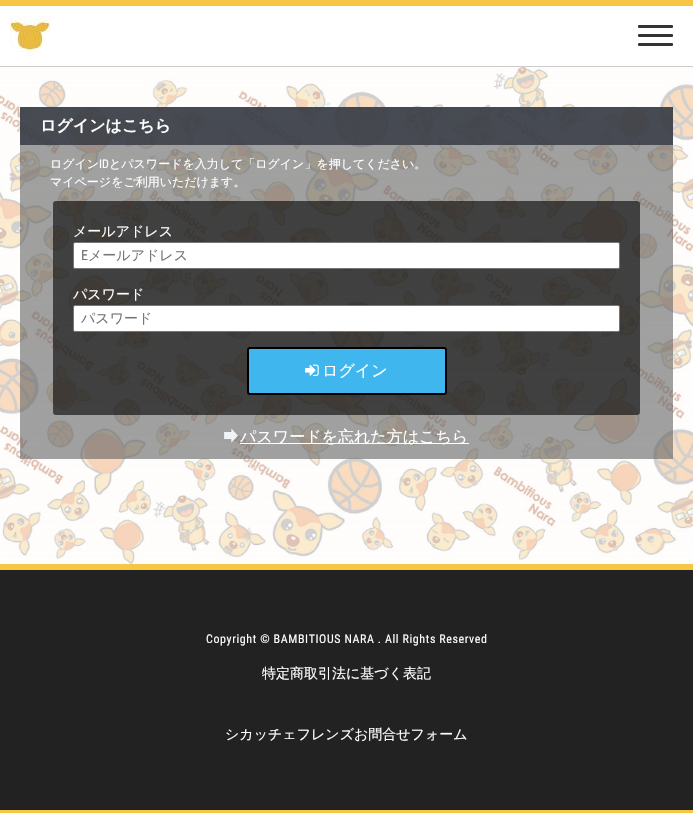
void draw(SkCanvas* canvas) {
    SkPaint paint;
    paint.setAntiAlias(true);
    auto spacedText = [&](const char* s, float x, float y, const SkFont& font, const SkPaint& ink, float letter, float word) {
        std::vector<SkGlyphID> glyphs(font.countText(s, strlen(s), SkTextEncoding::kUTF8));
        std::vector<float> xs(glyphs.size());
        font.textToGlyphs(s, strlen(s), SkTextEncoding::kUTF8, glyphs);
        font.getXPos(glyphs, xs, x);
        float extra = 0;
        for (size_t i = 0; i < glyphs.size(); i++) {
            xs[i] += extra;
            extra += letter + word * (glyphs[i] == font.unicharToGlyph(' '));
        }
        canvas->drawTextBlob(SkTextBlob::MakeFromPosHGlyphs(glyphs, xs, y, font), 0, 0, ink);
    };
    canvas->clear(0xFFFFFFFF);
    paint.setColor(0xFFF6C745);
    canvas->drawRect(SkRect::MakeXYWH(0, 0, 693, 6), paint);
    paint.setColor(0xFFCCCCCC);
    canvas->drawRect(SkRect::MakeXYWH(0, 66, 693, 1), paint);
    canvas->drawImageRect(SkImages::DeferredFromEncodedData(SkData::MakeFromFileName("img1.png")), SkRect::MakeXYWH(10, 16, 40, 40), SkSamplingOptions());
    paint.setColor(0xFF333333);
    canvas->drawRoundRect(SkRect::MakeXYWH(638, 25, 35, 3), 1, 1, paint);
    canvas->drawRoundRect(SkRect::MakeXYWH(638, 34, 35, 3), 1, 1, paint);
    canvas->drawRoundRect(SkRect::MakeXYWH(638, 43, 35, 3), 1, 1, paint);
    canvas->drawImageRect(SkImages::DeferredFromEncodedData(SkData::MakeFromFileName("img2.png")), SkRect::MakeXYWH(0, 67, 693, 497), SkSamplingOptions());
    paint.setColor(0x99626262);
    canvas->drawRect(SkRect::MakeXYWH(20, 107, 653, 352), paint);
    paint.setColor(0xCC2F353F);
    canvas->drawRect(SkRect::MakeXYWH(20, 107, 653, 38), paint);
    SkFont font1(fontMgr->matchFamilyStyle("WenQuanYi Zen Hei", SkFontStyle::Bold()), 16);
    font1.setSubpixel(true);
    paint.setColor(0xFFFFFFFF);
    canvas->drawString("ログインはこちら", 40, 131, font1, paint);
    SkFont font2(fontMgr->matchFamilyStyle("WenQuanYi Zen Hei", SkFontStyle(500, SkFontStyle::kNormal_Width, SkFontStyle::kUpright_Slant)), 12);
    font2.setSubpixel(true);
    canvas->drawString("ログイン", 50, 168, font2, paint);
    SkFont font3(fontMgr->matchFamilyStyle("Roboto Condensed", SkFontStyle::Normal()), 12);
    font3.setSubpixel(true);
    canvas->drawString("ID", 99, 168, font3, paint);
    canvas->drawString("とパスワードを入力して「ログイン」を押してください。", 109, 168, font2, paint);
    canvas->drawString("マイページをご利用いただけます。", 50, 186, font2, paint);
    paint.setColor(0x99000000);
    canvas->drawRoundRect(SkRect::MakeXYWH(53, 201, 587, 214), 3, 3, paint);
    SkFont font4(fontMgr->matchFamilyStyle("WenQuanYi Zen Hei", SkFontStyle(500, SkFontStyle::kNormal_Width, SkFontStyle::kUpright_Slant)), 14);
    font4.setSubpixel(true);
    paint.setColor(0xFFFFFFFF);
    canvas->drawString("メールアドレス", 73, 236, font4, paint);
    canvas->drawRoundRect(SkRect::MakeXYWH(73.5f, 242.5f, 546, 26), 1.5f, 1.5f, paint);
    paint.setStyle(SkPaint::kStroke_Style);
    paint.setStrokeWidth(1);
    paint.setColor(0xFF767676);
    canvas->drawRoundRect(SkRect::MakeXYWH(73.5f, 242.5f, 546, 26), 1.5f, 1.5f, paint);
    SkFont font5(fontMgr->matchFamilyStyle("Roboto Condensed", SkFontStyle::Normal()), 14);
    font5.setSubpixel(true);
    paint.setStyle(SkPaint::kFill_Style);
    paint.setColor(0xFF757575);
    canvas->drawString("E", 81, 260, font5, paint);
    canvas->drawString("メールアドレス", 88, 260, font4, paint);
    paint.setColor(0xFFFFFFFF);
    canvas->drawString("パスワード", 73, 299, font4, paint);
    canvas->drawRoundRect(SkRect::MakeXYWH(73.5f, 305.5f, 546, 26), 1.5f, 1.5f, paint);
    paint.setStyle(SkPaint::kStroke_Style);
    paint.setColor(0xFF767676);
    canvas->drawRoundRect(SkRect::MakeXYWH(73.5f, 305.5f, 546, 26), 1.5f, 1.5f, paint);
    paint.setStyle(SkPaint::kFill_Style);
    paint.setColor(0xFF757575);
    canvas->drawString("パスワード", 81, 323, font4, paint);
    paint.setColor(0xFF3FB7EE);
    canvas->drawRoundRect(SkRect::MakeXYWH(248, 348, 198, 46), 2, 2, paint);
    paint.setStyle(SkPaint::kStroke_Style);
    paint.setStrokeWidth(2);
    paint.setColor(0xFF000000);
    canvas->drawRoundRect(SkRect::MakeXYWH(248, 348, 198, 46), 2, 2, paint);
    canvas->drawImageRect(SkImages::DeferredFromEncodedData(SkData::MakeFromFileName("img3.png")), SkRect::MakeXYWH(305, 364, 14, 12), SkSamplingOptions());
    SkFont font6(fontMgr->matchFamilyStyle("WenQuanYi Zen Hei", SkFontStyle(500, SkFontStyle::kNormal_Width, SkFontStyle::kUpright_Slant)), 16);
    font6.setSubpixel(true);
    paint.setStyle(SkPaint::kFill_Style);
    paint.setColor(0xFFFFFFFF);
    canvas->drawString("ログイン", 322, 376, font6, paint);
    canvas->drawImageRect(SkImages::DeferredFromEncodedData(SkData::MakeFromFileName("img4.png")), SkRect::MakeXYWH(224, 428, 14, 15), SkSamplingOptions());
    canvas->drawRect(SkRect::MakeXYWH(240, 443, 229, 1), paint);
    canvas->drawString("パスワードを忘れた方はこちら", 240, 442, font6, paint);
    paint.setColor(0xFF222222);
    canvas->drawRect(SkRect::MakeXYWH(0, 570, 693, 240), paint);
    paint.setColor(0xFFF6C745);
    canvas->drawRect(SkRect::MakeXYWH(0, 564, 693, 6), paint);
    paint.setColor(0xFFFFFFFF);
    spacedText("Copyright © BAMBITIOUS NARA . All Rights Reserved", 206, 643, font3, paint, 0.6f, 0);
    canvas->drawString("特定商取引法に基づく表記", 262, 678, font4, paint);
    canvas->drawString("シカッチェフレンズお問合せフォーム", 225, 739, font4, paint);
    paint.setColor(0xFFF6C745);
    canvas->drawRect(SkRect::MakeXYWH(0, 810, 693, 3), paint);
}
